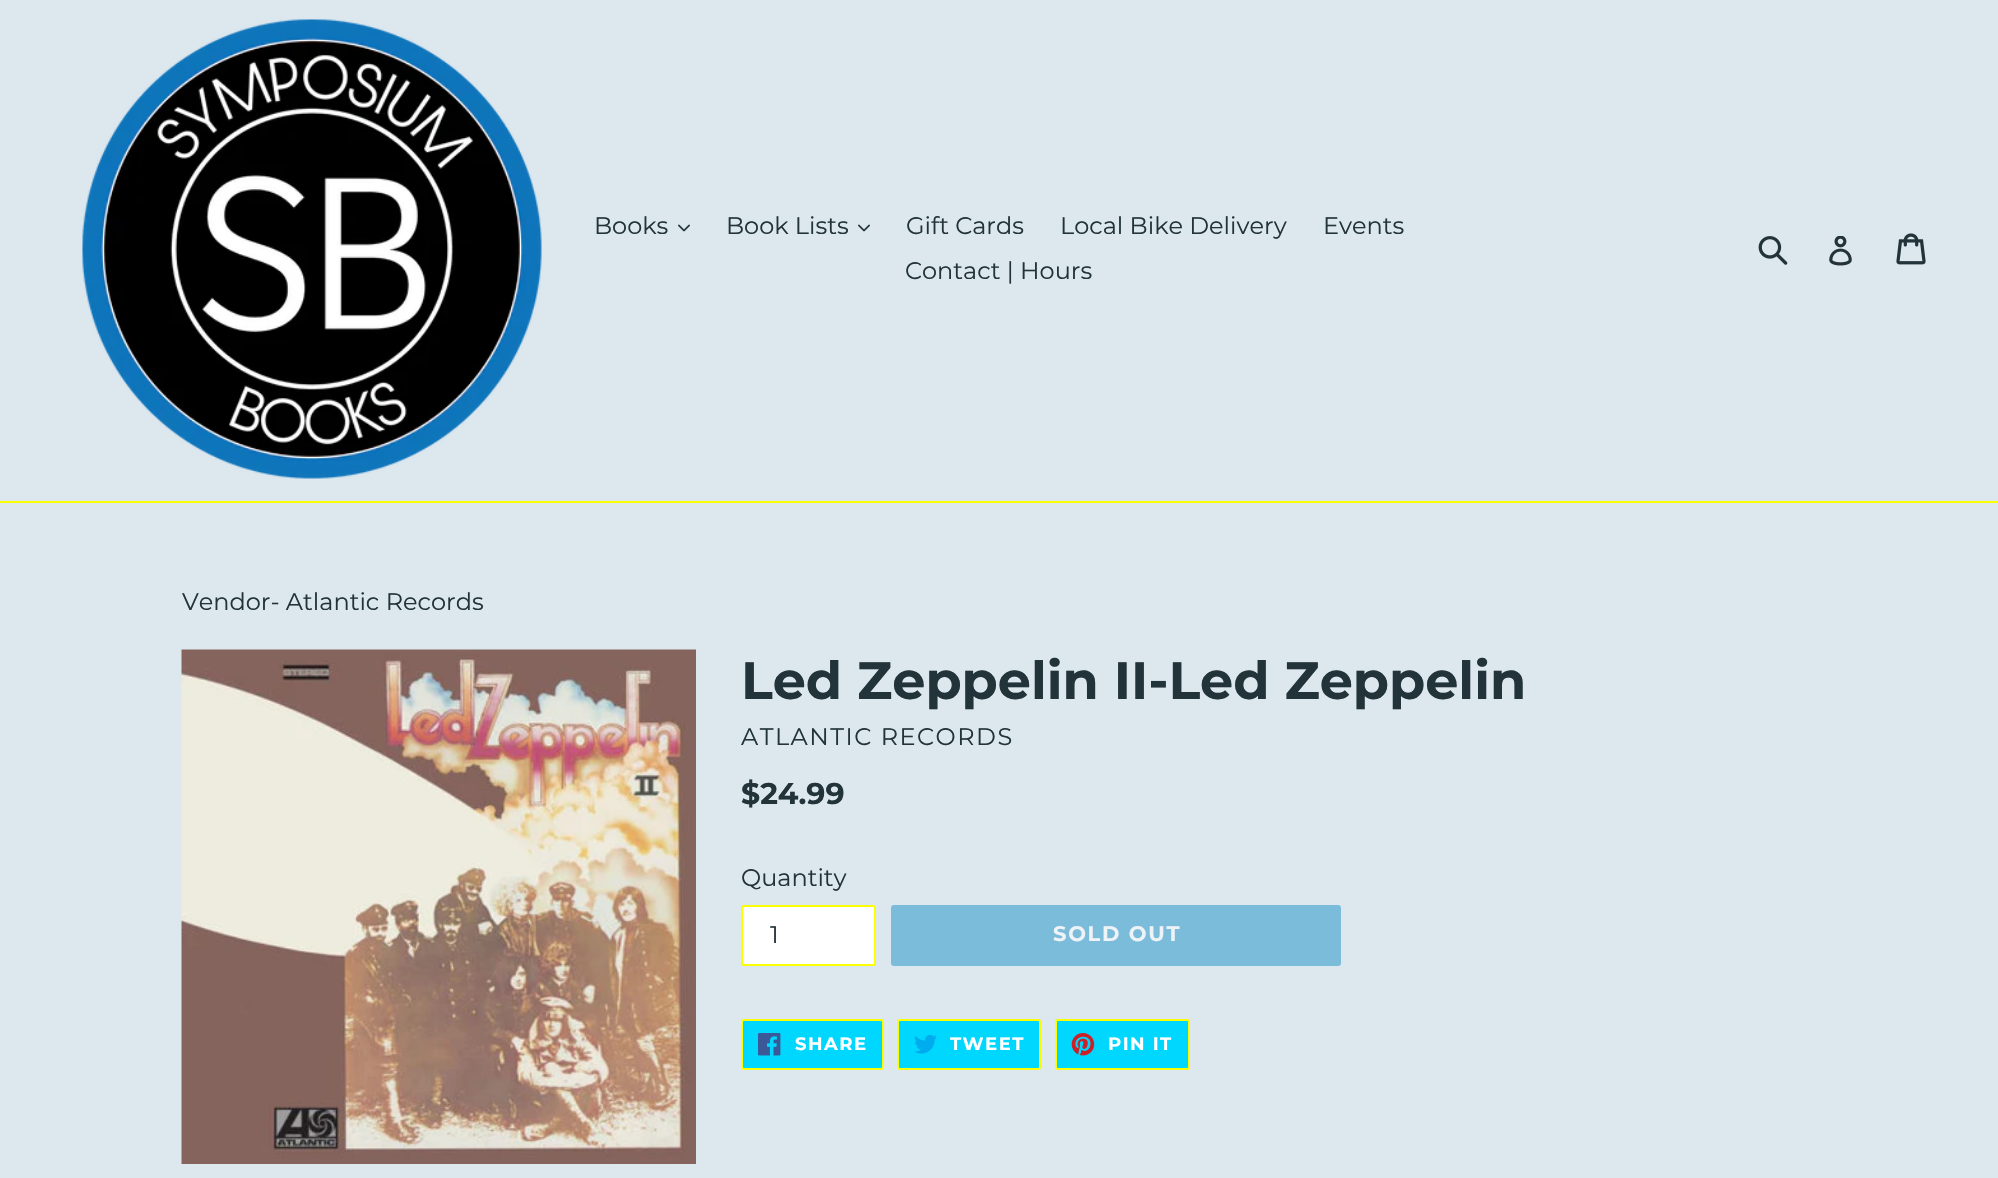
void draw(SkCanvas* canvas) {
    SkPaint paint;
    paint.setAntiAlias(true);
    auto spacedText = [&](const char* s, float x, float y, const SkFont& font, const SkPaint& ink, float letter, float word) {
        std::vector<SkGlyphID> glyphs(font.countText(s, strlen(s), SkTextEncoding::kUTF8));
        std::vector<float> xs(glyphs.size());
        font.textToGlyphs(s, strlen(s), SkTextEncoding::kUTF8, glyphs);
        font.getXPos(glyphs, xs, x);
        float extra = 0;
        for (size_t i = 0; i < glyphs.size(); i++) {
            xs[i] += extra;
            extra += letter + word * (glyphs[i] == font.unicharToGlyph(' '));
        }
        canvas->drawTextBlob(SkTextBlob::MakeFromPosHGlyphs(glyphs, xs, y, font), 0, 0, ink);
    };
    canvas->clear(0xFFDCE7EE);
    paint.setColor(0xFFFCFF00);
    canvas->drawRect(SkRect::MakeXYWH(0, 501, 1998, 2), paint);
    canvas->drawImageRect(SkImages::DeferredFromEncodedData(SkData::MakeFromFileName("img1.png")), SkRect::MakeXYWH(82, 19, 460, 460), SkSamplingOptions());
    SkFont font1(fontMgr->matchFamilyStyle("Montserrat", SkFontStyle::Normal()), 24);
    font1.setSubpixel(true);
    paint.setColor(0xFF23333A);
    canvas->drawString("Books", 594, 234, font1, paint);
    canvas->drawImageRect(SkImages::DeferredFromEncodedData(SkData::MakeFromFileName("img2.png")), SkRect::MakeXYWH(678, 224, 12, 8), SkSamplingOptions());
    canvas->drawString("Book Lists", 726, 234, font1, paint);
    canvas->drawImageRect(SkImages::DeferredFromEncodedData(SkData::MakeFromFileName("img2.png")), SkRect::MakeXYWH(858, 224, 12, 8), SkSamplingOptions());
    canvas->drawString("Gift Cards", 906, 234, font1, paint);
    canvas->drawString("Local Bike Delivery", 1060, 234, font1, paint);
    canvas->drawString("Events", 1323, 234, font1, paint);
    canvas->drawString("Contact | Hours", 905, 279, font1, paint);
    canvas->drawImageRect(SkImages::DeferredFromEncodedData(SkData::MakeFromFileName("img3.png")), SkRect::MakeXYWH(1758, 236, 30, 29), SkSamplingOptions());
    canvas->drawImageRect(SkImages::DeferredFromEncodedData(SkData::MakeFromFileName("img4.png")), SkRect::MakeXYWH(1829, 236, 23, 30), SkSamplingOptions());
    canvas->drawImageRect(SkImages::DeferredFromEncodedData(SkData::MakeFromFileName("img5.png")), SkRect::MakeXYWH(1896, 233, 30, 32), SkSamplingOptions());
    canvas->drawString("Vendor- Atlantic Records", 182, 610, font1, paint);
    canvas->drawImageRect(SkImages::DeferredFromEncodedData(SkData::MakeFromFileName("img6.png")), SkRect::MakeXYWH(181, 649, 515, 515), SkSamplingOptions());
    SkFont font2(fontMgr->matchFamilyStyle("Montserrat", SkFontStyle::Bold()), 52.5f);
    font2.setSubpixel(true);
    canvas->drawString("Led Zeppelin II-Led Zeppelin", 741, 699, font2, paint);
    spacedText("ATLANTIC RECORDS", 741, 745, font1, paint, 1.5f, 0);
    SkFont font3(fontMgr->matchFamilyStyle("Montserrat", SkFontStyle::Bold()), 30);
    font3.setSubpixel(true);
    canvas->drawString("$24.99", 741, 804, font3, paint);
    canvas->drawString("Quantity", 741, 886, font1, paint);
    paint.setColor(0xFFFFFFFF);
    canvas->drawRoundRect(SkRect::MakeXYWH(742, 906, 133, 59), 2, 2, paint);
    paint.setStyle(SkPaint::kStroke_Style);
    paint.setStrokeWidth(2);
    paint.setColor(0xFFFCFF00);
    canvas->drawRoundRect(SkRect::MakeXYWH(742, 906, 133, 59), 2, 2, paint);
    paint.setStyle(SkPaint::kFill_Style);
    paint.setColor(0xFF23333A);
    canvas->drawString("1", 770, 943, font1, paint);
    paint.setColor(0xFF7BBCDA);
    canvas->drawRoundRect(SkRect::MakeXYWH(891, 905, 450, 61), 3, 3, paint);
    SkFont font4(fontMgr->matchFamilyStyle("Montserrat", SkFontStyle::Bold()), 21);
    font4.setSubpixel(true);
    paint.setColor(0xFFEEF3F7);
    spacedText("SOLD OUT", 1053, 941, font4, paint, 1.75f, 0);
    paint.setColor(0xFF00D7FF);
    canvas->drawRoundRect(SkRect::MakeXYWH(742, 1020, 141, 49), 2, 2, paint);
    paint.setStyle(SkPaint::kStroke_Style);
    paint.setColor(0xFFFCFF00);
    canvas->drawRoundRect(SkRect::MakeXYWH(742, 1020, 141, 49), 2, 2, paint);
    canvas->drawImageRect(SkImages::DeferredFromEncodedData(SkData::MakeFromFileName("img7.png")), SkRect::MakeXYWH(758, 1033, 23, 23), SkSamplingOptions());
    SkFont font5(fontMgr->matchFamilyStyle("Montserrat", SkFontStyle::Bold()), 18);
    font5.setSubpixel(true);
    paint.setStyle(SkPaint::kFill_Style);
    paint.setColor(0xFFFFFFFF);
    spacedText("SHARE", 795, 1050, font5, paint, 1.5f, 0);
    paint.setColor(0xFF00D7FF);
    canvas->drawRoundRect(SkRect::MakeXYWH(898, 1020, 142, 49), 2, 2, paint);
    paint.setStyle(SkPaint::kStroke_Style);
    paint.setColor(0xFFFCFF00);
    canvas->drawRoundRect(SkRect::MakeXYWH(898, 1020, 142, 49), 2, 2, paint);
    canvas->drawImageRect(SkImages::DeferredFromEncodedData(SkData::MakeFromFileName("img8.png")), SkRect::MakeXYWH(914, 1034, 23, 20), SkSamplingOptions());
    paint.setStyle(SkPaint::kFill_Style);
    paint.setColor(0xFFFFFFFF);
    spacedText("TWEET", 950, 1050, font5, paint, 1.5f, 0);
    paint.setColor(0xFF00D7FF);
    canvas->drawRoundRect(SkRect::MakeXYWH(1056, 1020, 133, 49), 2, 2, paint);
    paint.setStyle(SkPaint::kStroke_Style);
    paint.setColor(0xFFFCFF00);
    canvas->drawRoundRect(SkRect::MakeXYWH(1056, 1020, 133, 49), 2, 2, paint);
    canvas->drawImageRect(SkImages::DeferredFromEncodedData(SkData::MakeFromFileName("img9.png")), SkRect::MakeXYWH(1071, 1033, 24, 23), SkSamplingOptions());
    paint.setStyle(SkPaint::kFill_Style);
    paint.setColor(0xFFFFFFFF);
    spacedText("PIN IT", 1108, 1050, font5, paint, 1.5f, 0);
}
